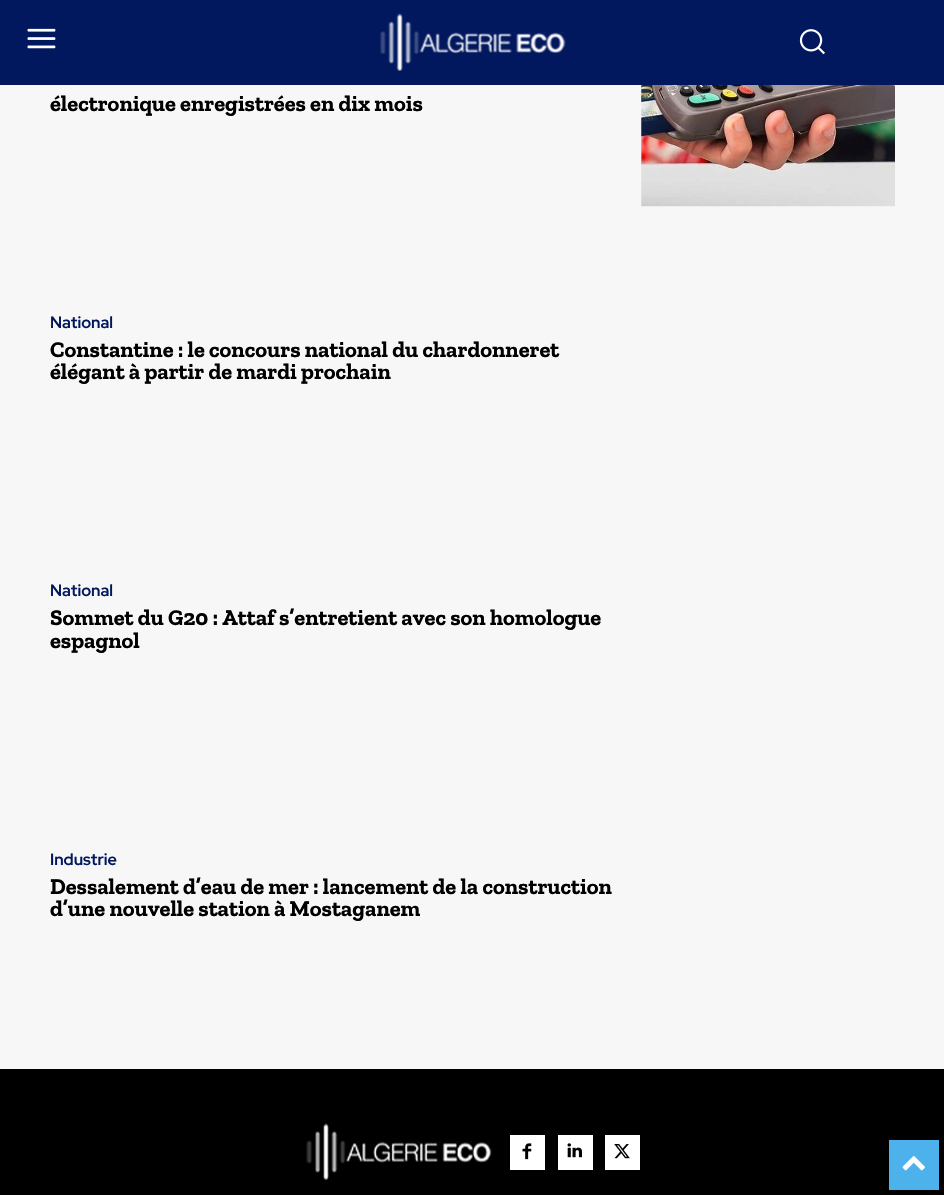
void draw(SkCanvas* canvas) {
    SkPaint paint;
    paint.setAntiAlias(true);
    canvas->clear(0xFFF7F7F7);
    paint.setColor(0xFF01175E);
    canvas->drawRect(SkRect::MakeXYWH(0, 0, 944, 85), paint);
    canvas->drawImageRect(SkImages::DeferredFromEncodedData(SkData::MakeFromFileName("img1.png")), SkRect::MakeXYWH(27, 28, 29, 21), SkSamplingOptions());
    canvas->drawImageRect(SkImages::DeferredFromEncodedData(SkData::MakeFromFileName("img2.png")), SkRect::MakeXYWH(380, 13, 186, 58), SkSamplingOptions());
    canvas->drawImageRect(SkImages::DeferredFromEncodedData(SkData::MakeFromFileName("img3.png")), SkRect::MakeXYWH(799, 29, 26, 26), SkSamplingOptions());
    SkFont font1(fontMgr->matchFamilyStyle("Zilla Slab", SkFontStyle::Bold()), 22.5f);
    font1.setSubpixel(true);
    paint.setColor(0xFF000000);
    canvas->drawString("électronique enregistrées en dix mois", 50, 111, font1, paint);
    canvas->drawImageRect(SkImages::DeferredFromEncodedData(SkData::MakeFromFileName("img4.png")), SkRect::MakeXYWH(641, 85, 254, 122), SkSamplingOptions());
    SkFont font2(fontMgr->matchFamilyStyle("Red Hat Display", SkFontStyle::Bold()), 16.25f);
    font2.setSubpixel(true);
    paint.setColor(0xFF01175E);
    canvas->drawString("National", 50, 328, font2, paint);
    paint.setColor(0xFF000000);
    canvas->drawString("Constantine : le concours national du chardonneret", 50, 357, font1, paint);
    canvas->drawString("élégant à partir de mardi prochain", 50, 379, font1, paint);
    paint.setColor(0xFF01175E);
    canvas->drawString("National", 50, 596, font2, paint);
    paint.setColor(0xFF000000);
    canvas->drawString("Sommet du G20 : Attaf s’entretient avec son homologue", 50, 625, font1, paint);
    canvas->drawString("espagnol", 50, 648, font1, paint);
    paint.setColor(0xFF01175E);
    canvas->drawString("Industrie", 50, 865, font2, paint);
    paint.setColor(0xFF000000);
    canvas->drawString("Dessalement d’eau de mer : lancement de la construction", 50, 894, font1, paint);
    canvas->drawString("d’une nouvelle station à Mostaganem", 50, 916, font1, paint);
    canvas->drawRect(SkRect::MakeXYWH(0, 1069, 944, 126), paint);
    canvas->drawImageRect(SkImages::DeferredFromEncodedData(SkData::MakeFromFileName("img5.png")), SkRect::MakeXYWH(306, 1123, 186, 57), SkSamplingOptions());
    paint.setColor(0xFFFFFFFF);
    canvas->drawRect(SkRect::MakeXYWH(510, 1135, 35, 35), paint);
    canvas->drawImageRect(SkImages::DeferredFromEncodedData(SkData::MakeFromFileName("img6.png")), SkRect::MakeXYWH(522, 1143, 10, 17), SkSamplingOptions());
    canvas->drawRect(SkRect::MakeXYWH(558, 1135, 35, 35), paint);
    canvas->drawImageRect(SkImages::DeferredFromEncodedData(SkData::MakeFromFileName("img7.png")), SkRect::MakeXYWH(567, 1143, 15, 15), SkSamplingOptions());
    canvas->drawRect(SkRect::MakeXYWH(605, 1135, 35, 35), paint);
    canvas->drawImageRect(SkImages::DeferredFromEncodedData(SkData::MakeFromFileName("img8.png")), SkRect::MakeXYWH(614, 1144, 16, 15), SkSamplingOptions());
    paint.setColor(0xFF4DB2EC);
    canvas->drawRect(SkRect::MakeXYWH(889, 1140, 50, 50), paint);
    canvas->drawImageRect(SkImages::DeferredFromEncodedData(SkData::MakeFromFileName("img9.png")), SkRect::MakeXYWH(902, 1156, 23, 15), SkSamplingOptions());
}
